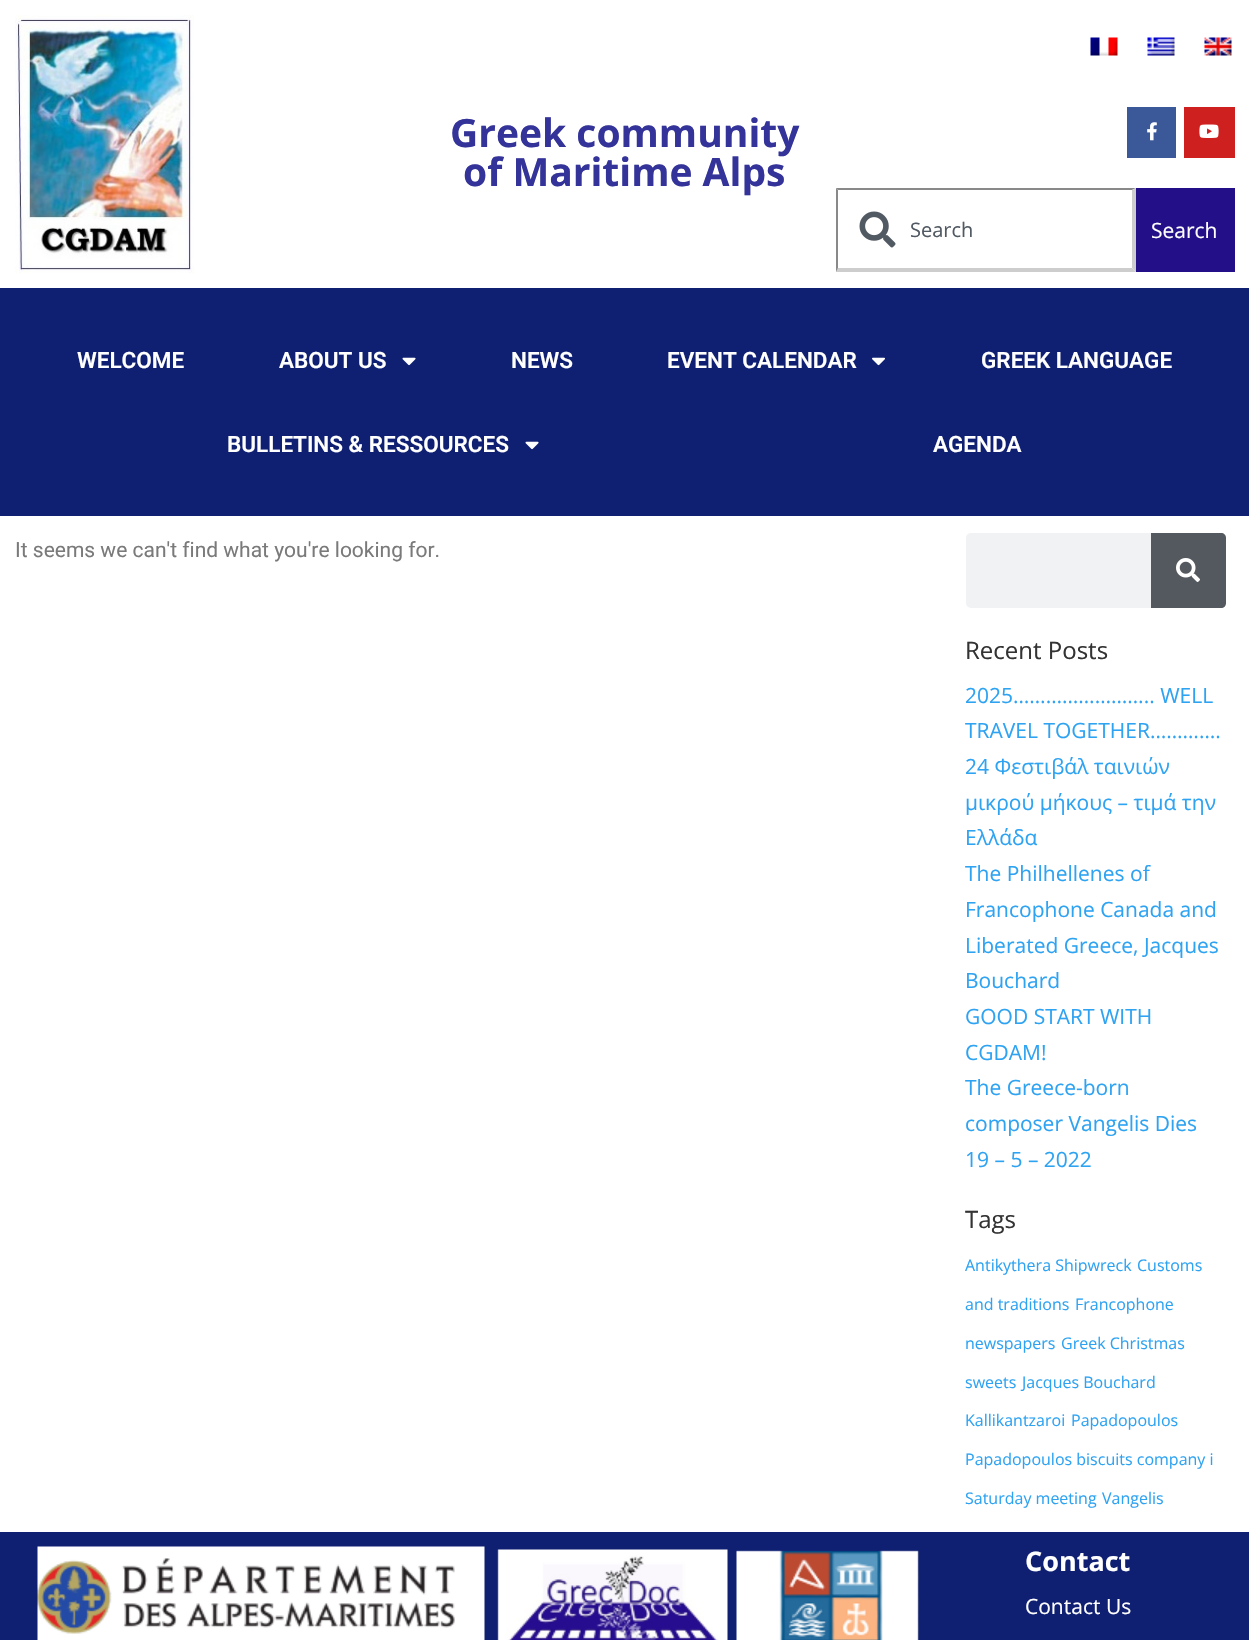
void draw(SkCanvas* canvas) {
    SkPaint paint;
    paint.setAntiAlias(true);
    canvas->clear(0xFFFFFFFF);
    canvas->drawImageRect(SkImages::DeferredFromEncodedData(SkData::MakeFromFileName("img1.png")), SkRect::MakeXYWH(15, 15, 179, 258), SkSamplingOptions());
    SkFont font1(fontMgr->matchFamilyStyle("Open Sans", SkFontStyle::Bold()), 39);
    font1.setSubpixel(true);
    paint.setColor(0xFF333399);
    canvas->drawString("Greek community", 450, 147, font1, paint);
    canvas->drawString("of Maritime Alps", 463, 186, font1, paint);
    canvas->drawImageRect(SkImages::DeferredFromEncodedData(SkData::MakeFromFileName("img2.png")), SkRect::MakeXYWH(1090, 37, 28, 19), SkSamplingOptions());
    canvas->drawImageRect(SkImages::DeferredFromEncodedData(SkData::MakeFromFileName("img3.png")), SkRect::MakeXYWH(1147, 37, 28, 19), SkSamplingOptions());
    canvas->drawImageRect(SkImages::DeferredFromEncodedData(SkData::MakeFromFileName("img4.png")), SkRect::MakeXYWH(1204, 37, 28, 19), SkSamplingOptions());
    paint.setColor(0xFF3B5998);
    canvas->drawRect(SkRect::MakeXYWH(1127, 107, 49, 51), paint);
    canvas->drawImageRect(SkImages::DeferredFromEncodedData(SkData::MakeFromFileName("img5.png")), SkRect::MakeXYWH(1147, 122, 10, 19), SkSamplingOptions());
    paint.setColor(0xFFCD201F);
    canvas->drawRect(SkRect::MakeXYWH(1184, 107, 51, 51), paint);
    canvas->drawImageRect(SkImages::DeferredFromEncodedData(SkData::MakeFromFileName("img6.png")), SkRect::MakeXYWH(1199, 124, 20, 14), SkSamplingOptions());
    canvas->drawImageRect(SkImages::DeferredFromEncodedData(SkData::MakeFromFileName("img7.png")), SkRect::MakeXYWH(859, 211, 37, 37), SkSamplingOptions());
    paint.setColor(0xFF898989);
    canvas->drawPath(SkPathBuilder().moveTo(836, 188).lineTo(1136, 188).lineTo(1132, 190).lineTo(838, 190).close().detach(), paint);
    paint.setColor(0xFFCDCDCD);
    canvas->drawPath(SkPathBuilder().moveTo(1136, 188).lineTo(1136, 272).lineTo(1132, 268).lineTo(1132, 190).close().detach(), paint);
    canvas->drawPath(SkPathBuilder().moveTo(1136, 272).lineTo(836, 272).lineTo(838, 268).lineTo(1132, 268).close().detach(), paint);
    paint.setColor(0xFF898989);
    canvas->drawPath(SkPathBuilder().moveTo(836, 272).lineTo(836, 188).lineTo(838, 190).lineTo(838, 268).close().detach(), paint);
    SkFont font2(fontMgr->matchFamilyStyle("Open Sans", SkFontStyle::Normal()), 20);
    font2.setSubpixel(true);
    paint.setColor(0xFF515962);
    canvas->drawString("Search", 910, 237, font2, paint);
    paint.setColor(0xFF231089);
    canvas->drawRect(SkRect::MakeXYWH(1136, 188, 99, 84), paint);
    SkFont font3(fontMgr->matchFamilyStyle("Open Sans", SkFontStyle::Normal()), 21);
    font3.setSubpixel(true);
    paint.setColor(0xFFFFFFFF);
    canvas->drawString("Search", 1151, 238, font3, paint);
    paint.setColor(0xFF0F2072);
    canvas->drawRect(SkRect::MakeXYWH(0, 288, 1249, 228), paint);
    SkFont font4(fontMgr->matchFamilyStyle("Roboto", SkFontStyle(600, SkFontStyle::kNormal_Width, SkFontStyle::kUpright_Slant)), 22.5f);
    font4.setSubpixel(true);
    paint.setColor(0xFFFFFFFF);
    canvas->drawString("WELCOME", 77, 368, font4, paint);
    canvas->drawString("ABOUT US", 279, 368, font4, paint);
    canvas->drawImageRect(SkImages::DeferredFromEncodedData(SkData::MakeFromFileName("img8.png")), SkRect::MakeXYWH(402, 357, 14, 9), SkSamplingOptions());
    canvas->drawString("NEWS", 511, 368, font4, paint);
    canvas->drawString("EVENT CALENDAR", 667, 368, font4, paint);
    canvas->drawImageRect(SkImages::DeferredFromEncodedData(SkData::MakeFromFileName("img9.png")), SkRect::MakeXYWH(872, 357, 13, 9), SkSamplingOptions());
    canvas->drawString("GREEK LANGUAGE", 981, 368, font4, paint);
    canvas->drawString("BULLETINS & RESSOURCES", 227, 452, font4, paint);
    canvas->drawImageRect(SkImages::DeferredFromEncodedData(SkData::MakeFromFileName("img8.png")), SkRect::MakeXYWH(525, 441, 14, 9), SkSamplingOptions());
    canvas->drawString("AGENDA", 933, 452, font4, paint);
    SkFont font5(fontMgr->matchFamilyStyle("Roboto", SkFontStyle::Normal()), 21);
    font5.setSubpixel(true);
    paint.setColor(0xFF7A7A7A);
    canvas->drawString("It seems we can't find what you're looking for.", 15, 557, font5, paint);
    paint.setColor(0xFFF1F2F3);
    canvas->drawRoundRect(SkRect::MakeXYWH(966, 533, 260, 75), 5, 5, paint);
    paint.setColor(0xFF54595F);
    canvas->drawPath(SkPathBuilder().moveTo(1151, 533).lineTo(1221, 533).cubicTo(1224, 533, 1226, 535, 1226, 538).lineTo(1226, 603).cubicTo(1226, 606, 1224, 608, 1221, 608).lineTo(1151, 608).close().detach(), paint);
    canvas->drawImageRect(SkImages::DeferredFromEncodedData(SkData::MakeFromFileName("img10.png")), SkRect::MakeXYWH(1176, 558, 24, 24), SkSamplingOptions());
    SkFont font6(fontMgr->matchFamilyStyle("Open Sans", SkFontStyle::Normal()), 24);
    font6.setSubpixel(true);
    paint.setColor(0xFF333333);
    canvas->drawString("Recent Posts", 965, 659, font6, paint);
    paint.setColor(0xFF2EA3F2);
    canvas->drawString("2025…………………….. WELL", 965, 703, font3, paint);
    canvas->drawString("TRAVEL TOGETHER………….", 965, 738, font3, paint);
    canvas->drawString("24 Φεστιβάλ ταινιών", 965, 774, font3, paint);
    canvas->drawString("μικρού μήκους – τιμά την", 965, 810, font3, paint);
    canvas->drawString("Ελλάδα", 965, 845, font3, paint);
    canvas->drawString("The Philhellenes of", 965, 881, font3, paint);
    canvas->drawString("Francophone Canada and", 965, 917, font3, paint);
    canvas->drawString("Liberated Greece, Jacques", 965, 953, font3, paint);
    canvas->drawString("Bouchard", 965, 988, font3, paint);
    canvas->drawString("GOOD START WITH", 965, 1024, font3, paint);
    canvas->drawString("CGDAM!", 965, 1060, font3, paint);
    canvas->drawString("The Greece-born", 965, 1095, font3, paint);
    canvas->drawString("composer Vangelis Dies", 965, 1131, font3, paint);
    canvas->drawString("19 – 5 – 2022", 965, 1167, font3, paint);
    paint.setColor(0xFF333333);
    canvas->drawString("Tags", 965, 1228, font6, paint);
    SkFont font7(fontMgr->matchFamilyStyle("Open Sans", SkFontStyle::Normal()), 16);
    font7.setSubpixel(true);
    paint.setColor(0xFF2EA3F2);
    canvas->drawString("Antikythera Shipwreck", 965, 1271, font7, paint);
    canvas->drawString("Customs", 1137, 1271, font7, paint);
    canvas->drawString("and traditions", 965, 1310, font7, paint);
    canvas->drawString("Francophone", 1075, 1310, font7, paint);
    canvas->drawString("newspapers", 965, 1349, font7, paint);
    canvas->drawString("Greek Christmas", 1061, 1349, font7, paint);
    canvas->drawString("sweets", 965, 1388, font7, paint);
    canvas->drawString("Jacques Bouchard", 1022, 1388, font7, paint);
    canvas->drawString("Kallikantzaroi", 965, 1426, font7, paint);
    canvas->drawString("Papadopoulos", 1071, 1426, font7, paint);
    canvas->drawString("Papadopoulos biscuits company i", 965, 1465, font7, paint);
    canvas->drawString("Saturday meeting", 965, 1504, font7, paint);
    canvas->drawString("Vangelis", 1102, 1504, font7, paint);
    paint.setColor(0xFF0F2072);
    canvas->drawRect(SkRect::MakeXYWH(0, 1532, 1249, 108), paint);
    canvas->drawImageRect(SkImages::DeferredFromEncodedData(SkData::MakeFromFileName("img11.png")), SkRect::MakeXYWH(37, 1546, 883, 94), SkSamplingOptions());
    SkFont font8(fontMgr->matchFamilyStyle("Open Sans", SkFontStyle::Bold()), 27);
    font8.setSubpixel(true);
    paint.setColor(0xFFFFFFFF);
    canvas->drawString("Contact", 1025, 1571, font8, paint);
    canvas->drawString("Contact Us", 1025, 1614, font3, paint);
}
